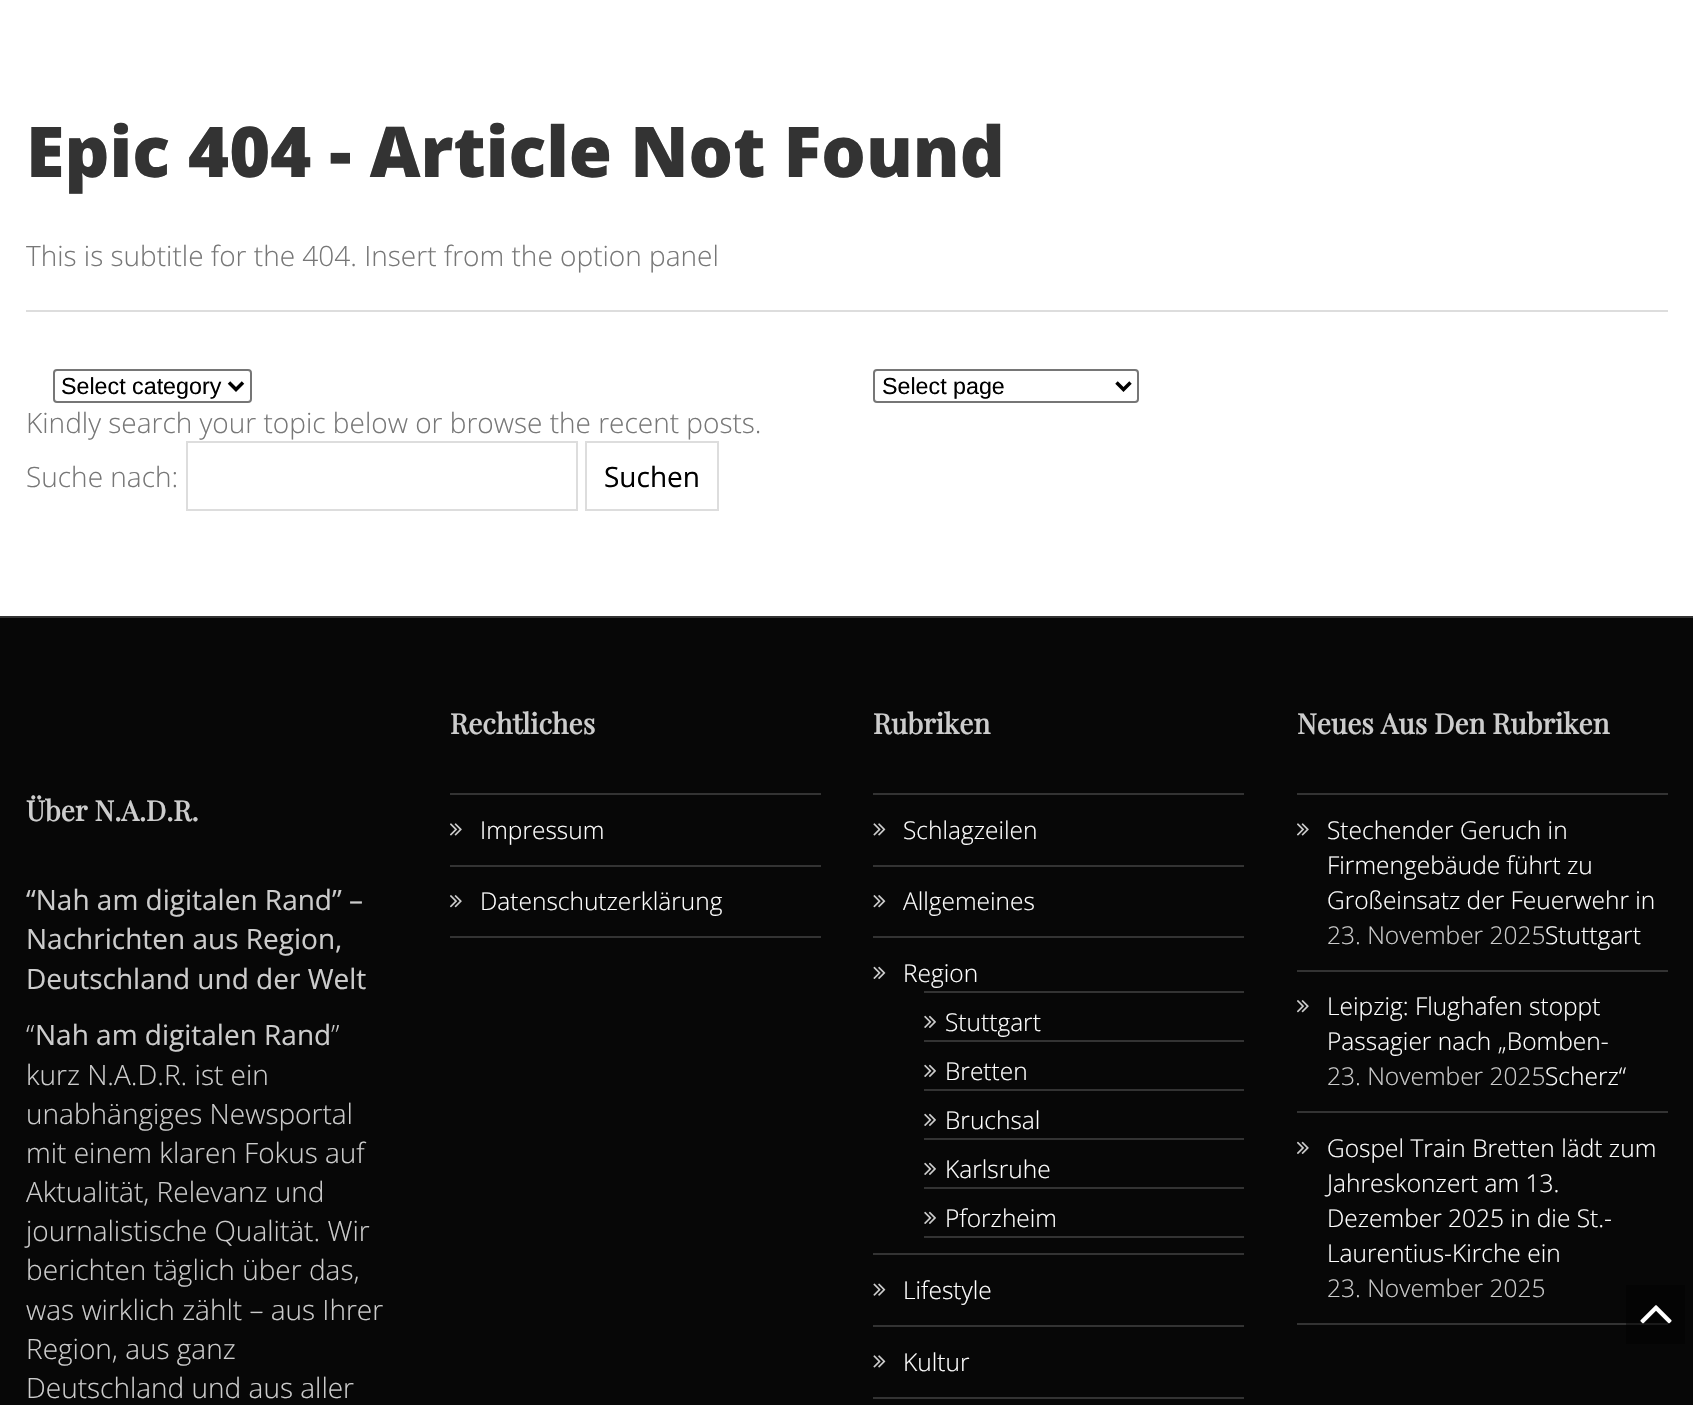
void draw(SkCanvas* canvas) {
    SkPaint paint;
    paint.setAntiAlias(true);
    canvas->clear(0xFFFFFFFF);
    paint.setColor(0xFFDDDDDD);
    canvas->drawRect(SkRect::MakeXYWH(26, 310, 1642, 2), paint);
    SkFont font1(fontMgr->matchFamilyStyle("Open Sans", SkFontStyle(800, SkFontStyle::kNormal_Width, SkFontStyle::kUpright_Slant)), 70);
    font1.setSubpixel(true);
    paint.setColor(0xFF333333);
    canvas->drawString("Epic 404 - Article Not Found", 26, 177, font1, paint);
    SkFont font2(fontMgr->matchFamilyStyle("Open Sans", SkFontStyle(300, SkFontStyle::kNormal_Width, SkFontStyle::kUpright_Slant)), 28);
    font2.setSubpixel(true);
    paint.setColor(0xFF777777);
    canvas->drawString("This is subtitle for the 404. Insert from the option panel", 26, 266, font2, paint);
    paint.setStyle(SkPaint::kStroke_Style);
    paint.setStrokeWidth(2);
    paint.setColor(0xFF767676);
    canvas->drawRoundRect(SkRect::MakeXYWH(54, 370, 197, 32), 3, 3, paint);
    paint.setStrokeWidth(3.5f);
    paint.setColor(0xFF000000);
    canvas->drawPath(SkPathBuilder().moveTo(229, 382.5f).lineTo(236, 389.5f).lineTo(243, 382.5f).detach(), paint);
    SkFont font3(fontMgr->matchFamilyStyle("Liberation Sans", SkFontStyle::Normal()), 23.25f);
    font3.setSubpixel(true);
    paint.setStyle(SkPaint::kFill_Style);
    canvas->drawString("Select category", 61, 394, font3, paint);
    paint.setStyle(SkPaint::kStroke_Style);
    paint.setStrokeWidth(2);
    paint.setColor(0xFF767676);
    canvas->drawRoundRect(SkRect::MakeXYWH(874, 370, 264, 32), 3, 3, paint);
    paint.setStrokeWidth(3.5f);
    paint.setColor(0xFF000000);
    canvas->drawPath(SkPathBuilder().moveTo(1116.5f, 382.5f).lineTo(1123.5f, 389.5f).lineTo(1130.5f, 382.5f).detach(), paint);
    paint.setStyle(SkPaint::kFill_Style);
    canvas->drawString("Select page", 882, 394, font3, paint);
    paint.setColor(0xFF777777);
    canvas->drawString("Kindly search your topic below or browse the recent posts.", 26, 433, font2, paint);
    canvas->drawString("Suche nach:", 26, 487, font2, paint);
    paint.setStyle(SkPaint::kStroke_Style);
    paint.setStrokeWidth(2);
    paint.setColor(0xFFDDDDDD);
    canvas->drawRect(SkRect::MakeXYWH(187, 442, 390, 68), paint);
    canvas->drawRect(SkRect::MakeXYWH(586, 442, 132, 68), paint);
    SkFont font4(fontMgr->matchFamilyStyle("Open Sans", SkFontStyle::Normal()), 28);
    font4.setSubpixel(true);
    paint.setStyle(SkPaint::kFill_Style);
    paint.setColor(0xFF000000);
    canvas->drawString("Suchen", 604, 487, font4, paint);
    paint.setColor(0xFF070707);
    canvas->drawRect(SkRect::MakeXYWH(0, 618, 1693, 787), paint);
    paint.setColor(0xFF040404);
    canvas->drawRect(SkRect::MakeXYWH(1626, 1285, 59, 59), paint);
    paint.setColor(0xFF333333);
    canvas->drawRect(SkRect::MakeXYWH(0, 616, 1693, 2), paint);
    SkFont font5(fontMgr->matchFamilyStyle("Playfair Display", SkFontStyle::Bold()), 28);
    font5.setSubpixel(true);
    paint.setColor(0xFFCCCCCC);
    canvas->drawString("Über N.A.D.R.", 26, 821, font5, paint);
    canvas->drawString("“Nah am digitalen Rand” –", 26, 910, font4, paint);
    canvas->drawString("Nachrichten aus Region,", 26, 949, font4, paint);
    canvas->drawString("Deutschland und der Welt", 26, 989, font4, paint);
    canvas->drawString("“", 26, 1045, font2, paint);
    canvas->drawString("Nah am digitalen Rand", 35, 1045, font4, paint);
    canvas->drawString("”", 331, 1045, font2, paint);
    canvas->drawString("kurz N.A.D.R. ist ein", 26, 1085, font2, paint);
    canvas->drawString("unabhängiges Newsportal", 26, 1124, font2, paint);
    canvas->drawString("mit einem klaren Fokus auf", 26, 1163, font2, paint);
    canvas->drawString("Aktualität, Relevanz und", 26, 1202, font2, paint);
    canvas->drawString("journalistische Qualität. Wir", 26, 1241, font2, paint);
    canvas->drawString("berichten täglich über das,", 26, 1280, font2, paint);
    canvas->drawString("was wirklich zählt – aus Ihrer", 26, 1320, font2, paint);
    canvas->drawString("Region, aus ganz", 26, 1359, font2, paint);
    canvas->drawString("Deutschland und aus aller", 26, 1398, font2, paint);
    canvas->drawString("Rechtliches", 450, 734, font5, paint);
    paint.setColor(0xFF333333);
    canvas->drawRect(SkRect::MakeXYWH(450, 793, 371, 2), paint);
    canvas->drawRect(SkRect::MakeXYWH(450, 865, 371, 2), paint);
    canvas->drawImageRect(SkImages::DeferredFromEncodedData(SkData::MakeFromFileName("img1.png")), SkRect::MakeXYWH(450, 823, 12, 13), SkSamplingOptions());
    SkFont font6(fontMgr->matchFamilyStyle("Open Sans", SkFontStyle(300, SkFontStyle::kNormal_Width, SkFontStyle::kUpright_Slant)), 24.5f);
    font6.setSubpixel(true);
    paint.setColor(0xFFFFFFFF);
    canvas->drawString("Impressum", 480, 839, font6, paint);
    paint.setColor(0xFF333333);
    canvas->drawRect(SkRect::MakeXYWH(450, 936, 371, 2), paint);
    canvas->drawImageRect(SkImages::DeferredFromEncodedData(SkData::MakeFromFileName("img2.png")), SkRect::MakeXYWH(450, 895, 12, 13), SkSamplingOptions());
    paint.setColor(0xFFFFFFFF);
    canvas->drawString("Datenschutzerklärung", 480, 910, font6, paint);
    paint.setColor(0xFFCCCCCC);
    canvas->drawString("Rubriken", 873, 734, font5, paint);
    paint.setColor(0xFF333333);
    canvas->drawRect(SkRect::MakeXYWH(873, 793, 371, 2), paint);
    canvas->drawRect(SkRect::MakeXYWH(873, 865, 371, 2), paint);
    canvas->drawImageRect(SkImages::DeferredFromEncodedData(SkData::MakeFromFileName("img3.png")), SkRect::MakeXYWH(873, 823, 13, 13), SkSamplingOptions());
    paint.setColor(0xFFFFFFFF);
    canvas->drawString("Schlagzeilen", 903, 839, font6, paint);
    paint.setColor(0xFF333333);
    canvas->drawRect(SkRect::MakeXYWH(873, 936, 371, 2), paint);
    canvas->drawImageRect(SkImages::DeferredFromEncodedData(SkData::MakeFromFileName("img4.png")), SkRect::MakeXYWH(873, 895, 13, 13), SkSamplingOptions());
    paint.setColor(0xFFFFFFFF);
    canvas->drawString("Allgemeines", 903, 910, font6, paint);
    paint.setColor(0xFF333333);
    canvas->drawRect(SkRect::MakeXYWH(873, 1253, 371, 2), paint);
    canvas->drawImageRect(SkImages::DeferredFromEncodedData(SkData::MakeFromFileName("img5.png")), SkRect::MakeXYWH(873, 966, 13, 13), SkSamplingOptions());
    paint.setColor(0xFFFFFFFF);
    canvas->drawString("Region", 903, 982, font6, paint);
    paint.setColor(0xFF333333);
    canvas->drawRect(SkRect::MakeXYWH(924, 991, 320, 2), paint);
    canvas->drawRect(SkRect::MakeXYWH(924, 1040, 320, 2), paint);
    canvas->drawImageRect(SkImages::DeferredFromEncodedData(SkData::MakeFromFileName("img6.png")), SkRect::MakeXYWH(924, 1015, 12, 13), SkSamplingOptions());
    paint.setColor(0xFFFFFFFF);
    canvas->drawString("Stuttgart", 945, 1031, font6, paint);
    paint.setColor(0xFF333333);
    canvas->drawRect(SkRect::MakeXYWH(924, 1089, 320, 2), paint);
    canvas->drawImageRect(SkImages::DeferredFromEncodedData(SkData::MakeFromFileName("img6.png")), SkRect::MakeXYWH(924, 1064, 12, 13), SkSamplingOptions());
    paint.setColor(0xFFFFFFFF);
    canvas->drawString("Bretten", 945, 1080, font6, paint);
    paint.setColor(0xFF333333);
    canvas->drawRect(SkRect::MakeXYWH(924, 1138, 320, 2), paint);
    canvas->drawImageRect(SkImages::DeferredFromEncodedData(SkData::MakeFromFileName("img6.png")), SkRect::MakeXYWH(924, 1113, 12, 13), SkSamplingOptions());
    paint.setColor(0xFFFFFFFF);
    canvas->drawString("Bruchsal", 945, 1129, font6, paint);
    paint.setColor(0xFF333333);
    canvas->drawRect(SkRect::MakeXYWH(924, 1187, 320, 2), paint);
    canvas->drawImageRect(SkImages::DeferredFromEncodedData(SkData::MakeFromFileName("img6.png")), SkRect::MakeXYWH(924, 1162, 12, 13), SkSamplingOptions());
    paint.setColor(0xFFFFFFFF);
    canvas->drawString("Karlsruhe", 945, 1178, font6, paint);
    paint.setColor(0xFF333333);
    canvas->drawRect(SkRect::MakeXYWH(924, 1236, 320, 2), paint);
    canvas->drawImageRect(SkImages::DeferredFromEncodedData(SkData::MakeFromFileName("img6.png")), SkRect::MakeXYWH(924, 1211, 12, 13), SkSamplingOptions());
    paint.setColor(0xFFFFFFFF);
    canvas->drawString("Pforzheim", 945, 1227, font6, paint);
    paint.setColor(0xFF333333);
    canvas->drawRect(SkRect::MakeXYWH(873, 1325, 371, 2), paint);
    canvas->drawImageRect(SkImages::DeferredFromEncodedData(SkData::MakeFromFileName("img7.png")), SkRect::MakeXYWH(873, 1283, 13, 13), SkSamplingOptions());
    paint.setColor(0xFFFFFFFF);
    canvas->drawString("Lifestyle", 903, 1299, font6, paint);
    paint.setColor(0xFF333333);
    canvas->drawRect(SkRect::MakeXYWH(873, 1397, 371, 2), paint);
    canvas->drawImageRect(SkImages::DeferredFromEncodedData(SkData::MakeFromFileName("img3.png")), SkRect::MakeXYWH(873, 1355, 13, 13), SkSamplingOptions());
    paint.setColor(0xFFFFFFFF);
    canvas->drawString("Kultur", 903, 1371, font6, paint);
    paint.setColor(0xFFCCCCCC);
    canvas->drawString("Neues Aus Den Rubriken", 1297, 734, font5, paint);
    paint.setColor(0xFF333333);
    canvas->drawRect(SkRect::MakeXYWH(1297, 793, 371, 2), paint);
    canvas->drawRect(SkRect::MakeXYWH(1297, 970, 371, 2), paint);
    canvas->drawImageRect(SkImages::DeferredFromEncodedData(SkData::MakeFromFileName("img1.png")), SkRect::MakeXYWH(1297, 823, 12, 13), SkSamplingOptions());
    paint.setColor(0xFFFFFFFF);
    canvas->drawString("Stechender Geruch in", 1327, 839, font6, paint);
    canvas->drawString("Firmengebäude führt zu", 1327, 874, font6, paint);
    canvas->drawString("Großeinsatz der Feuerwehr in", 1327, 909, font6, paint);
    paint.setColor(0xFFCCCCCC);
    canvas->drawString("23. November 2025", 1327, 944, font6, paint);
    paint.setColor(0xFFFFFFFF);
    canvas->drawString("Stuttgart", 1545, 944, font6, paint);
    paint.setColor(0xFF333333);
    canvas->drawRect(SkRect::MakeXYWH(1297, 1111, 371, 2), paint);
    canvas->drawImageRect(SkImages::DeferredFromEncodedData(SkData::MakeFromFileName("img2.png")), SkRect::MakeXYWH(1297, 1000, 12, 13), SkSamplingOptions());
    paint.setColor(0xFFFFFFFF);
    canvas->drawString("Leipzig: Flughafen stoppt", 1327, 1015, font6, paint);
    canvas->drawString("Passagier nach „Bomben-", 1327, 1050, font6, paint);
    paint.setColor(0xFFCCCCCC);
    canvas->drawString("23. November 2025", 1327, 1085, font6, paint);
    paint.setColor(0xFFFFFFFF);
    canvas->drawString("Scherz“", 1545, 1085, font6, paint);
    paint.setColor(0xFF333333);
    canvas->drawRect(SkRect::MakeXYWH(1297, 1323, 329, 2), paint);
    paint.setColor(0xFF1A1A1A);
    canvas->drawRect(SkRect::MakeXYWH(1626, 1323, 42, 2), paint);
    canvas->drawImageRect(SkImages::DeferredFromEncodedData(SkData::MakeFromFileName("img8.png")), SkRect::MakeXYWH(1297, 1141, 12, 13), SkSamplingOptions());
    paint.setColor(0xFFFFFFFF);
    canvas->drawString("Gospel Train Bretten lädt zum", 1327, 1157, font6, paint);
    canvas->drawString("Jahreskonzert am 13.", 1327, 1192, font6, paint);
    canvas->drawString("Dezember 2025 in die St.-", 1327, 1227, font6, paint);
    canvas->drawString("Laurentius-Kirche ein", 1327, 1262, font6, paint);
    paint.setColor(0xFFCCCCCC);
    canvas->drawString("23. November 2025", 1327, 1297, font6, paint);
    canvas->drawImageRect(SkImages::DeferredFromEncodedData(SkData::MakeFromFileName("img9.png")), SkRect::MakeXYWH(1640, 1305, 32, 19), SkSamplingOptions());
}
